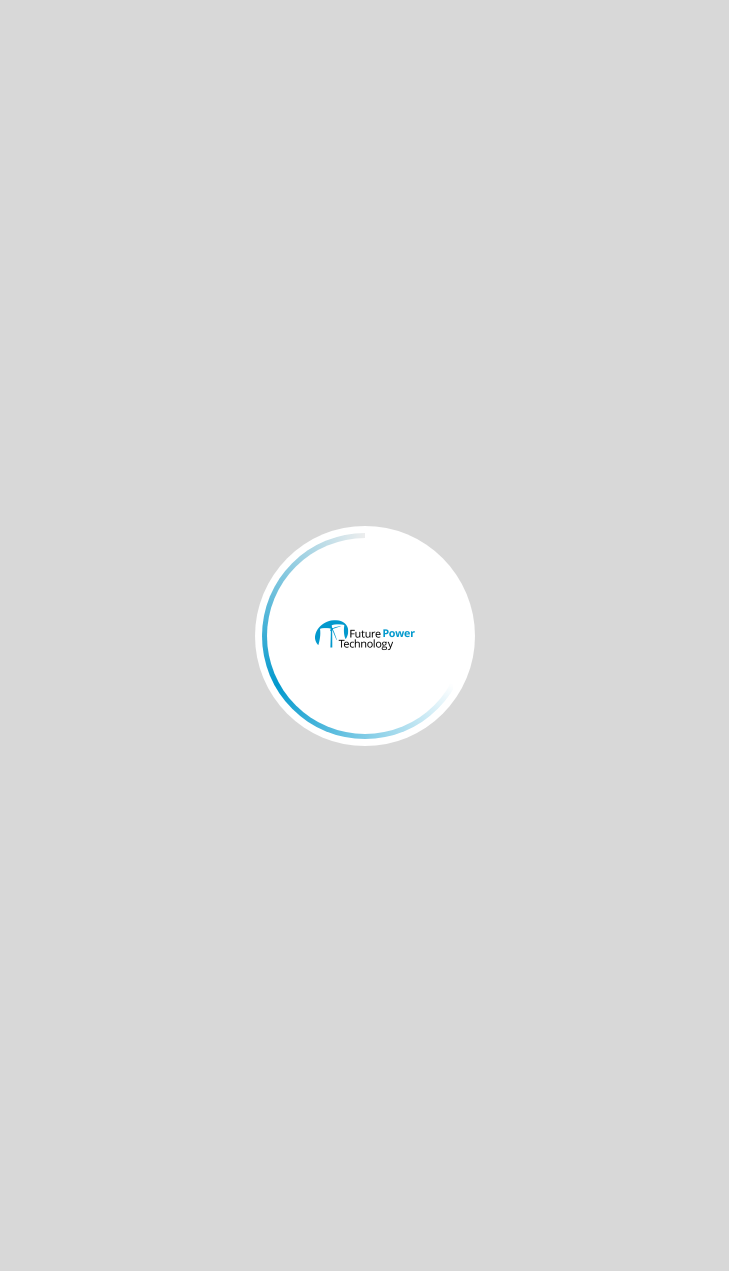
void draw(SkCanvas* canvas) {
    SkPaint paint;
    paint.setAntiAlias(true);
    canvas->clear(0xFFD8D8D8);
    paint.setColor(0xFFFFFFFF);
    canvas->drawCircle(365, 636, 110, paint);
    canvas->drawImageRect(SkImages::DeferredFromEncodedData(SkData::MakeFromFileName("img1.png")), SkRect::MakeXYWH(262, 533, 191, 206), SkSamplingOptions());
    canvas->drawCircle(365, 636, 98, paint);
    canvas->drawImageRect(SkImages::DeferredFromEncodedData(SkData::MakeFromFileName("img2.png")), SkRect::MakeXYWH(315, 620, 100, 31), SkSamplingOptions());
}
